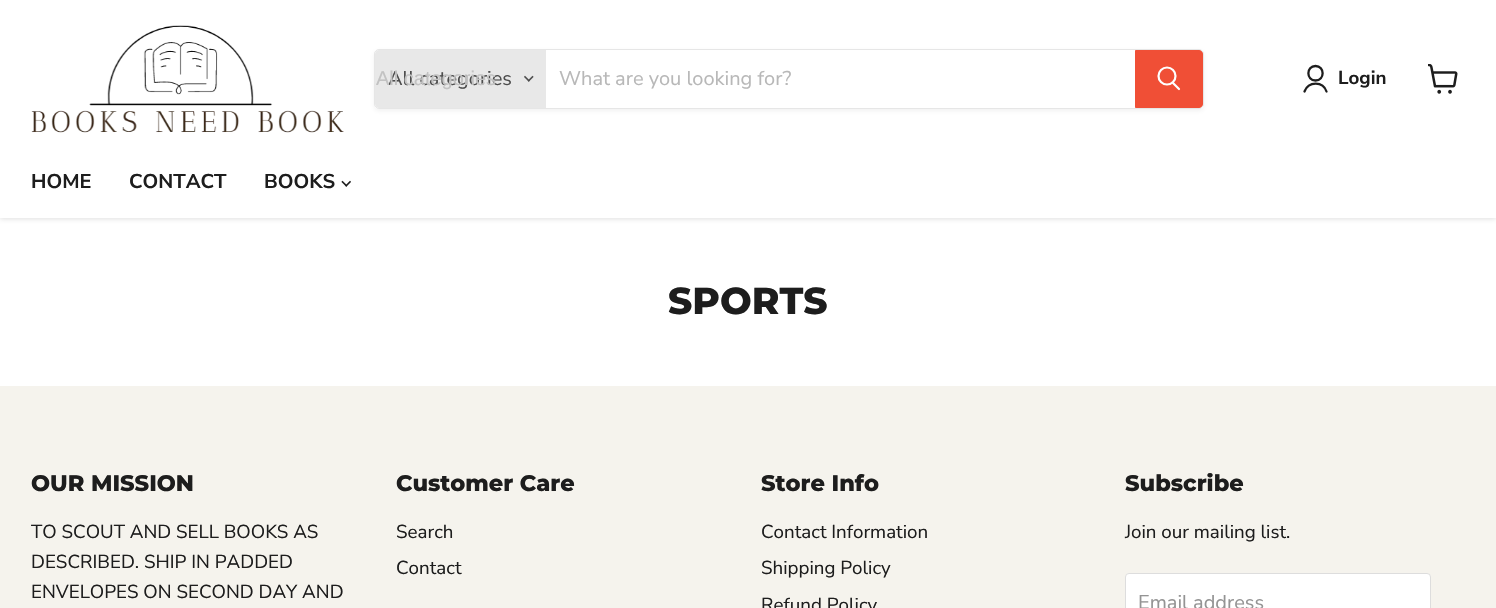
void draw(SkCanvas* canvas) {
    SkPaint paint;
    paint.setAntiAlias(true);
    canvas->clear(0xFFFFFFFF);
    paint.setColor(0x40808080);
    paint.setMaskFilter(SkMaskFilter::MakeBlur(kNormal_SkBlurStyle, 2.5f));
    canvas->drawRect(SkRect::MakeXYWH(0, 1, 1496, 218), paint);
    paint.setMaskFilter(nullptr);
    paint.setColor(0xFFFFFFFF);
    canvas->drawRect(SkRect::MakeXYWH(0, 0, 1496, 218), paint);
    canvas->drawImageRect(SkImages::DeferredFromEncodedData(SkData::MakeFromFileName("img1.png")), SkRect::MakeXYWH(31, 25, 313, 108), SkSamplingOptions());
    canvas->save();
    canvas->clipPath(SkPathBuilder(SkPathFillType::kEvenOdd).moveTo(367, 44).lineTo(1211, 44).lineTo(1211, 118).lineTo(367, 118).close().moveTo(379, 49).lineTo(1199, 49).cubicTo(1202, 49, 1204, 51, 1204, 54).lineTo(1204, 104).cubicTo(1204, 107, 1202, 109, 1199, 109).lineTo(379, 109).cubicTo(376, 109, 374, 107, 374, 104).lineTo(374, 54).cubicTo(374, 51, 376, 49, 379, 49).close().detach(), true);
    paint.setColor(0x1C808080);
    paint.setMaskFilter(SkMaskFilter::MakeBlur(kNormal_SkBlurStyle, 2));
    canvas->drawRoundRect(SkRect::MakeXYWH(374, 51, 830, 60), 5, 5, paint);
    paint.setMaskFilter(nullptr);
    canvas->restore();
    paint.setStyle(SkPaint::kStroke_Style);
    paint.setStrokeWidth(1);
    paint.setColor(0x33808080);
    canvas->drawRoundRect(SkRect::MakeXYWH(374.5f, 49.5f, 829, 59), 4.5f, 4.5f, paint);
    paint.setStyle(SkPaint::kFill_Style);
    paint.setColor(0xFFE8E8E8);
    canvas->drawPath(SkPathBuilder().moveTo(379, 50).lineTo(546, 50).lineTo(546, 108).lineTo(379, 108).cubicTo(377, 108, 375, 106, 375, 104).lineTo(375, 54).cubicTo(375, 52, 377, 50, 379, 50).close().detach(), paint);
    SkFont font1(fontMgr->matchFamilyStyle("Nunito Sans", SkFontStyle::Normal()), 20);
    font1.setSubpixel(true);
    paint.setColor(0xFF4D4D4D);
    canvas->drawString("All categories", 388, 85, font1, paint);
    SkFont font2(fontMgr->matchFamilyStyle("Liberation Sans", SkFontStyle::Normal()), 20);
    font2.setSubpixel(true);
    paint.setColor(0xFFC2C2C2);
    canvas->drawString("All categories", 376, 85, font2, paint);
    canvas->drawImageRect(SkImages::DeferredFromEncodedData(SkData::MakeFromFileName("img2.png")), SkRect::MakeXYWH(524, 75, 10, 7), SkSamplingOptions());
    paint.setColor(0xFFB8B8B8);
    canvas->drawString("What are you looking for?", 559, 85, font1, paint);
    paint.setColor(0xFFF04F36);
    canvas->drawPath(SkPathBuilder().moveTo(1135.5f, 50.5f).lineTo(1199, 50.5f).cubicTo(1201, 50.5f, 1202.5f, 52, 1202.5f, 54).lineTo(1202.5f, 104).cubicTo(1202.5f, 106, 1201, 107.5f, 1199, 107.5f).lineTo(1135.5f, 107.5f).close().detach(), paint);
    paint.setStyle(SkPaint::kStroke_Style);
    canvas->drawPath(SkPathBuilder().moveTo(1135.5f, 50.5f).lineTo(1199, 50.5f).cubicTo(1201, 50.5f, 1202.5f, 52, 1202.5f, 54).lineTo(1202.5f, 104).cubicTo(1202.5f, 106, 1201, 107.5f, 1199, 107.5f).lineTo(1135.5f, 107.5f).close().detach(), paint);
    paint.setStrokeWidth(2.2f);
    paint.setStrokeCap(SkPaint::kRound_Cap);
    paint.setColor(0xFFFFFFFF);
    canvas->drawPath(SkPathBuilder().moveTo(1179, 89).lineTo(1173, 83).detach(), paint);
    paint.setStrokeCap(SkPaint::kButt_Cap);
    canvas->drawCircle(1167, 76, 8.5f, paint);
    paint.setStrokeWidth(2.3f);
    paint.setStrokeCap(SkPaint::kRound_Cap);
    paint.setStrokeJoin(SkPaint::kRound_Join);
    paint.setColor(0xFF1D1D1D);
    canvas->drawPath(SkPathBuilder().moveTo(1315.5f, 80.5f).cubicTo(1325, 80.5f, 1325, 66, 1315.5f, 66).cubicTo(1306, 66, 1306, 80.5f, 1315.5f, 80.5f).close().moveTo(1326.5f, 91.5f).cubicTo(1323, 81, 1308.5f, 81, 1304.5f, 91.5f).detach(), paint);
    SkFont font3(fontMgr->matchFamilyStyle("Nunito Sans", SkFontStyle::Bold()), 18.75f);
    font3.setSubpixel(true);
    paint.setStyle(SkPaint::kFill_Style);
    canvas->drawString("Login", 1338, 84, font3, paint);
    canvas->drawImageRect(SkImages::DeferredFromEncodedData(SkData::MakeFromFileName("img3.png")), SkRect::MakeXYWH(1428, 64, 30, 30), SkSamplingOptions());
    SkFont font4(fontMgr->matchFamilyStyle("Nunito Sans", SkFontStyle::Bold()), 20);
    font4.setSubpixel(true);
    canvas->drawString("HOME", 31, 188, font4, paint);
    canvas->drawString("CONTACT", 129, 188, font4, paint);
    canvas->drawString("BOOKS", 264, 188, font4, paint);
    canvas->drawImageRect(SkImages::DeferredFromEncodedData(SkData::MakeFromFileName("img4.png")), SkRect::MakeXYWH(341, 180, 10, 7), SkSamplingOptions());
    SkFont font5(fontMgr->matchFamilyStyle("Montserrat", SkFontStyle(800, SkFontStyle::kNormal_Width, SkFontStyle::kUpright_Slant)), 37.5f);
    font5.setSubpixel(true);
    canvas->drawString("SPORTS", 668, 314, font5, paint);
    paint.setColor(0xFFF5F3ED);
    canvas->drawRect(SkRect::MakeXYWH(0, 386, 1496, 222), paint);
    SkFont font6(fontMgr->matchFamilyStyle("Montserrat", SkFontStyle(800, SkFontStyle::kNormal_Width, SkFontStyle::kUpright_Slant)), 22.5f);
    font6.setSubpixel(true);
    paint.setColor(0xFF1D1D1D);
    canvas->drawString("OUR MISSION", 31, 491, font6, paint);
    SkFont font7(fontMgr->matchFamilyStyle("Nunito Sans", SkFontStyle::Normal()), 18.75f);
    font7.setSubpixel(true);
    canvas->drawString("TO SCOUT AND SELL BOOKS AS", 31, 538, font7, paint);
    canvas->drawString("DESCRIBED. SHIP IN PADDED", 31, 568, font7, paint);
    canvas->drawString("ENVELOPES ON SECOND DAY AND", 31, 598, font7, paint);
    canvas->drawString("Customer Care", 396, 491, font6, paint);
    canvas->drawString("Search", 396, 538, font7, paint);
    canvas->drawString("Contact", 396, 574, font7, paint);
    canvas->drawString("Store Info", 761, 491, font6, paint);
    canvas->drawString("Contact Information", 761, 538, font7, paint);
    canvas->drawString("Shipping Policy", 761, 574, font7, paint);
    canvas->drawString("Refund Policy", 761, 611, font7, paint);
    canvas->drawString("Subscribe", 1125, 491, font6, paint);
    canvas->drawString("Join our mailing list.", 1125, 538, font7, paint);
    paint.setColor(0xFFFFFFFF);
    canvas->drawRoundRect(SkRect::MakeXYWH(1125.5f, 573.5f, 305, 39), 3.5f, 3.5f, paint);
    paint.setStyle(SkPaint::kStroke_Style);
    paint.setStrokeWidth(1);
    paint.setStrokeCap(SkPaint::kButt_Cap);
    paint.setStrokeJoin(SkPaint::kMiter_Join);
    paint.setColor(0xFFDDDDDD);
    canvas->drawRoundRect(SkRect::MakeXYWH(1125.5f, 573.5f, 305, 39), 3.5f, 3.5f, paint);
    paint.setStyle(SkPaint::kFill_Style);
    paint.setColor(0xFF949494);
    canvas->drawString("Email address", 1138, 609, font1, paint);
}
